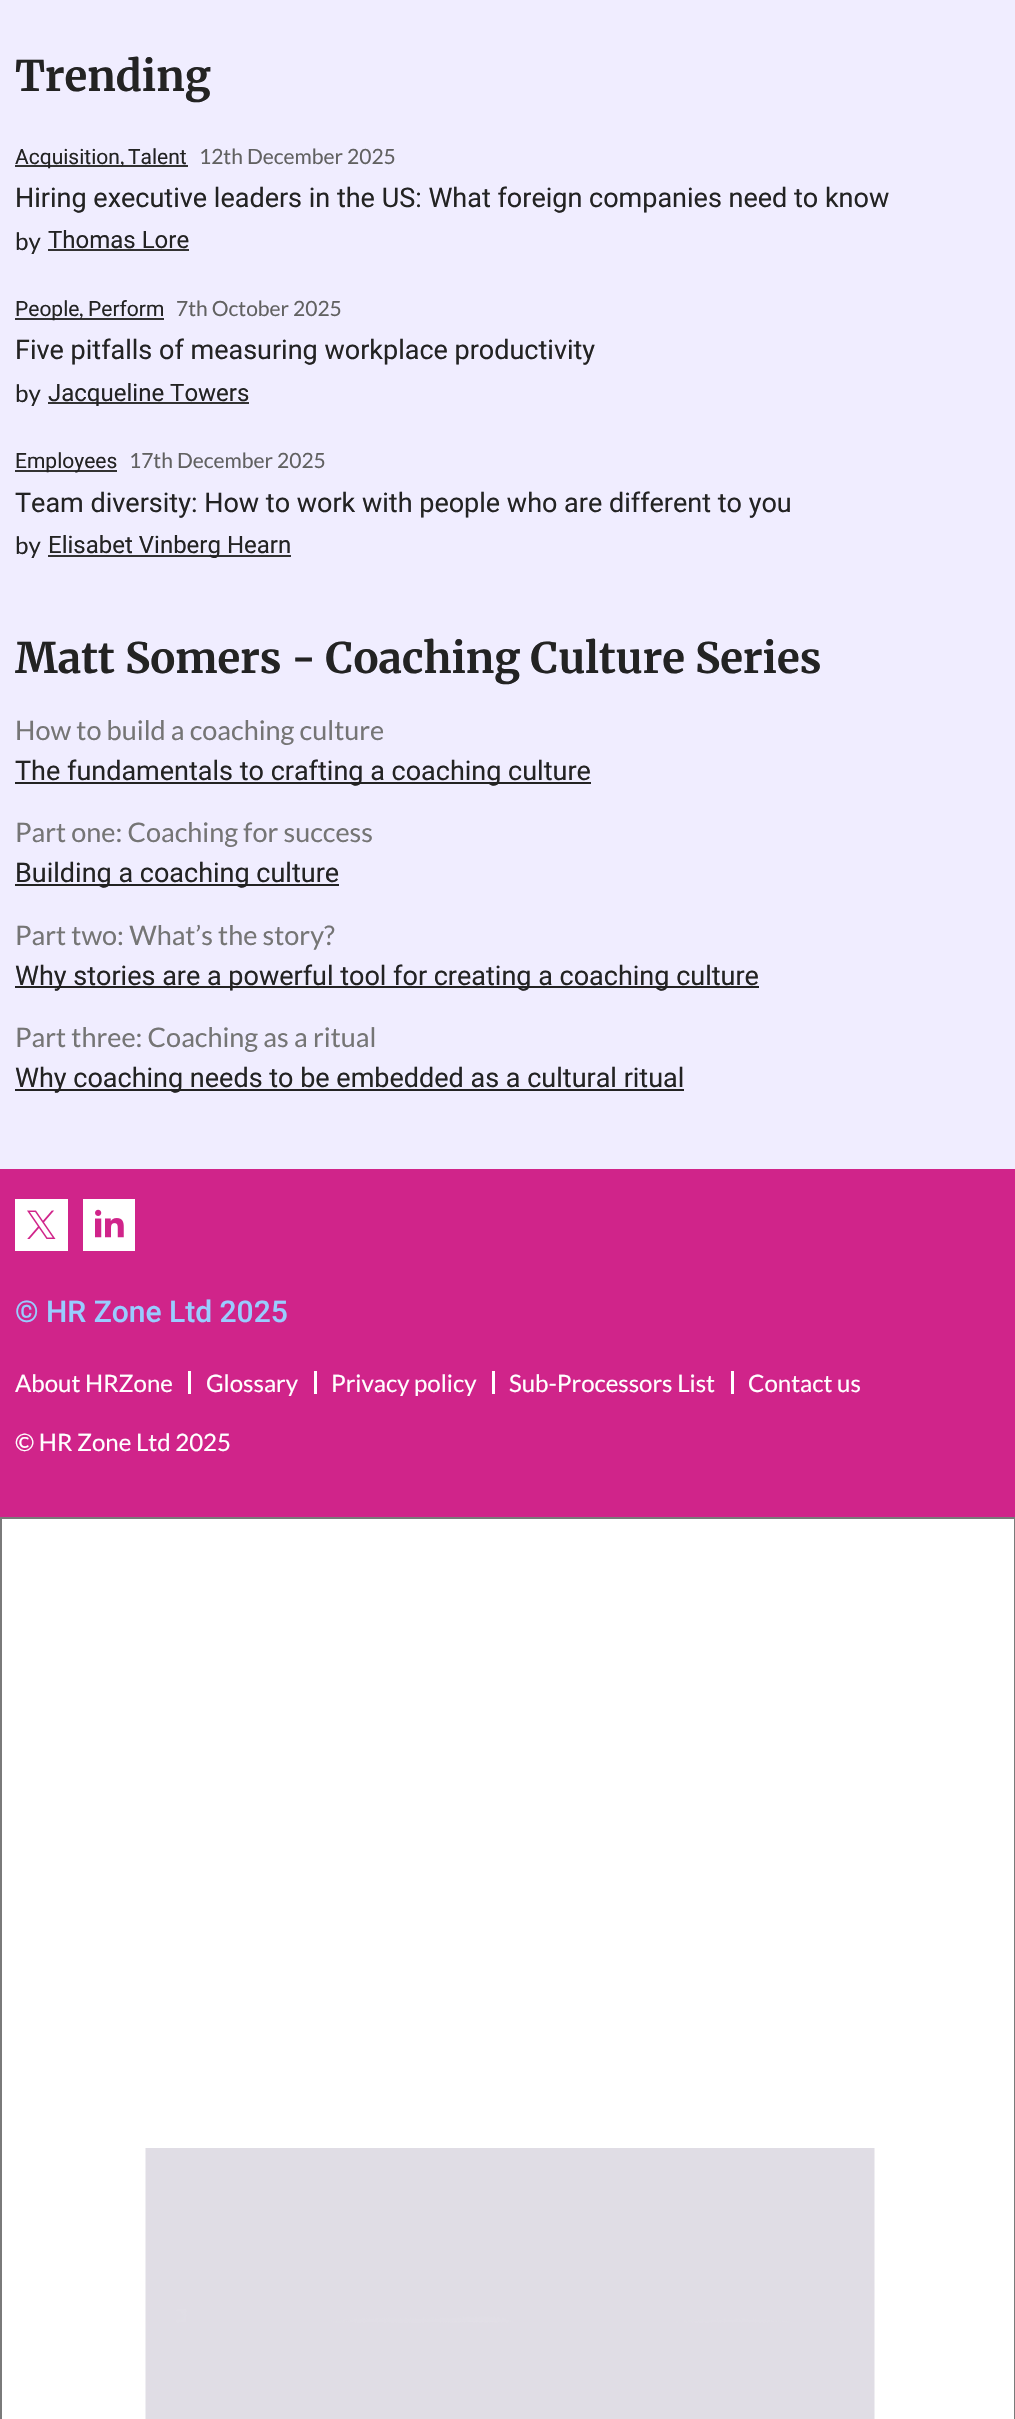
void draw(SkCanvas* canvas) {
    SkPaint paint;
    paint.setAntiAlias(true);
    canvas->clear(0xFFFFFFFF);
    paint.setColor(0xFFF0EDFF);
    canvas->drawRect(SkRect::MakeXYWH(0, 0, 1015, 1169), paint);
    SkFont font1(fontMgr->matchFamilyStyle("Merriweather", SkFontStyle::Bold()), 42);
    font1.setSubpixel(true);
    paint.setColor(0xFF232323);
    canvas->drawString("Trending", 15, 91, font1, paint);
    paint.setColor(0xFF333333);
    canvas->drawRect(SkRect::MakeXYWH(15, 165, 173, 2), paint);
    SkFont font2(fontMgr->matchFamilyStyle("Roboto", SkFontStyle::Normal()), 21);
    font2.setSubpixel(true);
    paint.setColor(0xFF232323);
    canvas->drawString("Acquisition", 15, 164, font2, paint);
    SkFont font3(fontMgr->matchFamilyStyle("Lato", SkFontStyle::Normal()), 21);
    font3.setSubpixel(true);
    canvas->drawString(",", 120, 164, font3, paint);
    canvas->drawString("Talent", 128, 164, font2, paint);
    paint.setColor(0xFF616161);
    canvas->drawString("12th December 2025", 199, 164, font3, paint);
    SkFont font4(fontMgr->matchFamilyStyle("Roboto", SkFontStyle::Normal()), 27);
    font4.setSubpixel(true);
    paint.setColor(0xFF232323);
    canvas->drawString("Hiring executive leaders in the US: What foreign companies need to know", 15, 207, font4, paint);
    SkFont font5(fontMgr->matchFamilyStyle("Lato", SkFontStyle::Normal()), 24);
    font5.setSubpixel(true);
    canvas->drawString("by", 15, 250, font5, paint);
    SkFont font6(fontMgr->matchFamilyStyle("Roboto", SkFontStyle::Normal()), 24);
    font6.setSubpixel(true);
    canvas->drawString("Thomas Lore", 48, 248, font6, paint);
    paint.setColor(0xFF333333);
    canvas->drawRect(SkRect::MakeXYWH(48, 249, 141, 2), paint);
    canvas->drawRect(SkRect::MakeXYWH(15, 318, 149, 2), paint);
    paint.setColor(0xFF232323);
    canvas->drawString("People", 15, 316, font2, paint);
    canvas->drawString(",", 79, 316, font3, paint);
    canvas->drawString("Perform", 88, 316, font2, paint);
    paint.setColor(0xFF616161);
    canvas->drawString("7th October 2025", 176, 316, font3, paint);
    paint.setColor(0xFF232323);
    canvas->drawString("Five pitfalls of measuring workplace productivity", 15, 359, font4, paint);
    canvas->drawString("by", 15, 402, font5, paint);
    paint.setColor(0xFF333333);
    canvas->drawRect(SkRect::MakeXYWH(48, 402, 201, 2), paint);
    paint.setColor(0xFF232323);
    canvas->drawString("Jacqueline Towers", 48, 401, font6, paint);
    paint.setColor(0xFF333333);
    canvas->drawRect(SkRect::MakeXYWH(15, 470, 102, 2), paint);
    paint.setColor(0xFF232323);
    canvas->drawString("Employees", 15, 468, font2, paint);
    paint.setColor(0xFF616161);
    canvas->drawString("17th December 2025", 129, 468, font3, paint);
    paint.setColor(0xFF232323);
    canvas->drawString("Team diversity: How to work with people who are different to you", 15, 512, font4, paint);
    canvas->drawString("by", 15, 554, font5, paint);
    paint.setColor(0xFF333333);
    canvas->drawRect(SkRect::MakeXYWH(48, 555, 243, 2), paint);
    paint.setColor(0xFF232323);
    canvas->drawString("Elisabet Vinberg Hearn", 48, 553, font6, paint);
    canvas->drawString("Matt Somers - Coaching Culture Series", 15, 673, font1, paint);
    SkFont font7(fontMgr->matchFamilyStyle("Lato", SkFontStyle::Normal()), 27);
    font7.setSubpixel(true);
    paint.setColor(0xFF757575);
    canvas->drawString("How to build a coaching culture", 15, 740, font7, paint);
    paint.setColor(0xFF232323);
    canvas->drawRect(SkRect::MakeXYWH(15, 782, 576, 2), paint);
    canvas->drawString("The fundamentals to crafting a coaching culture", 15, 780, font4, paint);
    paint.setColor(0xFF757575);
    canvas->drawString("Part one: Coaching for success", 15, 842, font7, paint);
    paint.setColor(0xFF232323);
    canvas->drawRect(SkRect::MakeXYWH(15, 884, 324, 2), paint);
    canvas->drawString("Building a coaching culture", 15, 882, font4, paint);
    paint.setColor(0xFF757575);
    canvas->drawString("Part two: What’s the story?", 15, 945, font7, paint);
    paint.setColor(0xFF232323);
    canvas->drawRect(SkRect::MakeXYWH(15, 986, 744, 2), paint);
    canvas->drawString("Why stories are a powerful tool for creating a coaching culture", 15, 985, font4, paint);
    paint.setColor(0xFF757575);
    canvas->drawString("Part three: Coaching as a ritual", 15, 1047, font7, paint);
    paint.setColor(0xFF232323);
    canvas->drawRect(SkRect::MakeXYWH(15, 1089, 669, 2), paint);
    canvas->drawString("Why coaching needs to be embedded as a cultural ritual", 15, 1087, font4, paint);
    paint.setColor(0xFFD0248A);
    canvas->drawRect(SkRect::MakeXYWH(0, 1169, 1015, 348), paint);
    paint.setColor(0xFFFFFFFF);
    canvas->drawRect(SkRect::MakeXYWH(15, 1199, 53, 52), paint);
    canvas->drawImageRect(SkImages::DeferredFromEncodedData(SkData::MakeFromFileName("img1.png")), SkRect::MakeXYWH(27, 1210, 29, 29), SkSamplingOptions());
    canvas->drawRect(SkRect::MakeXYWH(83, 1199, 52, 52), paint);
    canvas->drawImageRect(SkImages::DeferredFromEncodedData(SkData::MakeFromFileName("img2.png")), SkRect::MakeXYWH(95, 1209, 29, 29), SkSamplingOptions());
    SkFont font8(fontMgr->matchFamilyStyle("Roboto", SkFontStyle(500, SkFontStyle::kNormal_Width, SkFontStyle::kUpright_Slant)), 30);
    font8.setSubpixel(true);
    paint.setColor(0xFF99CCFF);
    canvas->drawString("© HR Zone Ltd 2025", 15, 1322, font8, paint);
    paint.setColor(0xFFFFFFFF);
    canvas->drawString("About HRZone", 15, 1392, font5, paint);
    canvas->drawRect(SkRect::MakeXYWH(188, 1371, 3, 23), paint);
    canvas->drawString("Glossary", 206, 1392, font5, paint);
    canvas->drawRect(SkRect::MakeXYWH(314, 1371, 3, 23), paint);
    canvas->drawString("Privacy policy", 331, 1392, font5, paint);
    canvas->drawRect(SkRect::MakeXYWH(492, 1371, 3, 23), paint);
    canvas->drawString("Sub-Processors List", 509, 1392, font5, paint);
    canvas->drawRect(SkRect::MakeXYWH(731, 1371, 3, 23), paint);
    canvas->drawString("Contact us", 748, 1392, font5, paint);
    canvas->drawString("© HR Zone Ltd 2025", 15, 1451, font5, paint);
    paint.setStyle(SkPaint::kStroke_Style);
    paint.setStrokeWidth(2);
    paint.setColor(0xFF7A7A7A);
    canvas->drawRect(SkRect::MakeXYWH(1, 1518, 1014, 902), paint);
    canvas->drawImageRect(SkImages::DeferredFromEncodedData(SkData::MakeFromFileName("img3.png")), SkRect::MakeXYWH(145, 2148, 730, 271), SkSamplingOptions());
}
